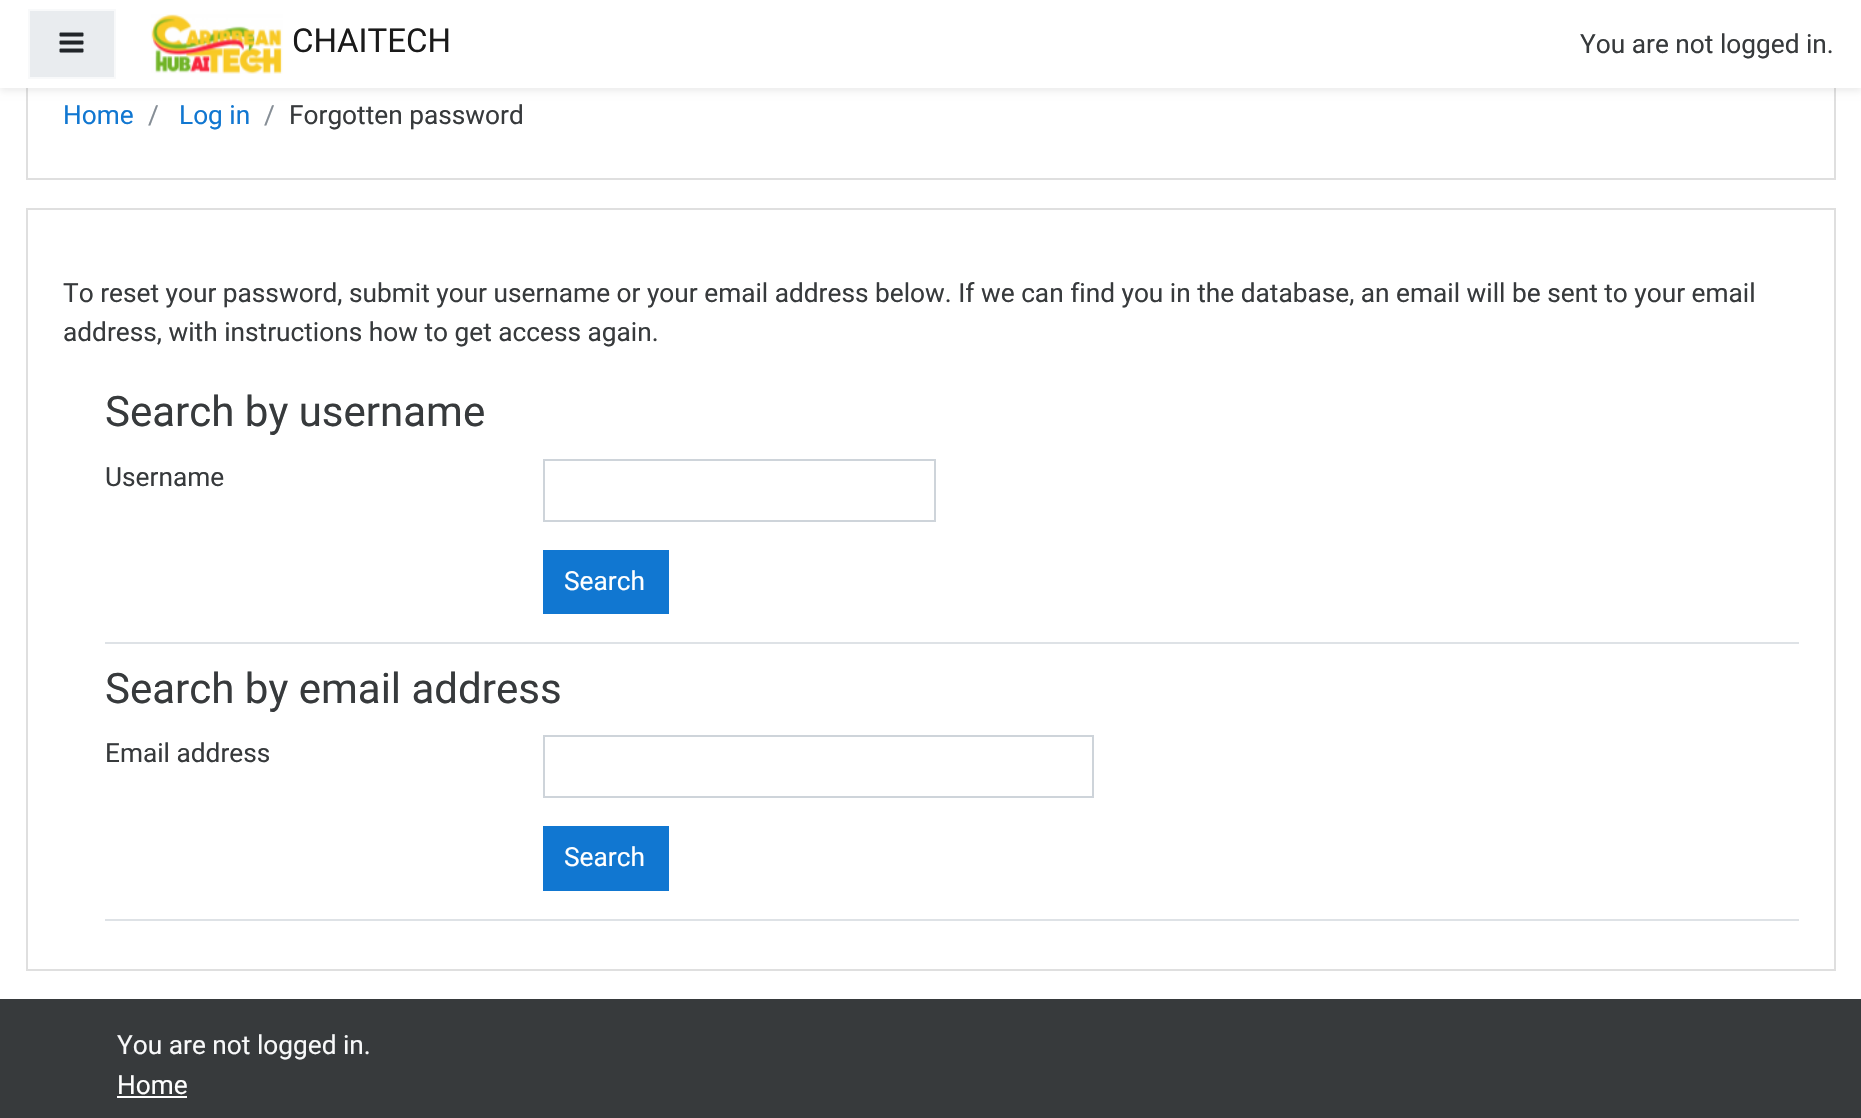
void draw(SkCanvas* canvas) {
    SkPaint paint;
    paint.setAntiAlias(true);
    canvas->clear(0xFFFFFFFF);
    paint.setStyle(SkPaint::kStroke_Style);
    paint.setStrokeWidth(2);
    paint.setColor(0xFFDFDFDF);
    canvas->drawRect(SkRect::MakeXYWH(27, -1, 1808, 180), paint);
    paint.setStyle(SkPaint::kFill_Style);
    paint.setColor(0x14000000);
    paint.setMaskFilter(SkMaskFilter::MakeBlur(kNormal_SkBlurStyle, 3.5f));
    canvas->drawRect(SkRect::MakeXYWH(0, 4, 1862, 87), paint);
    paint.setMaskFilter(nullptr);
    paint.setColor(0xFFFFFFFF);
    canvas->drawRect(SkRect::MakeXYWH(0, 0, 1861, 88), paint);
    paint.setColor(0xFFE9ECEF);
    canvas->drawRect(SkRect::MakeXYWH(29, 10, 86, 68), paint);
    paint.setStyle(SkPaint::kStroke_Style);
    paint.setColor(0xFFF8F9FA);
    canvas->drawRect(SkRect::MakeXYWH(29, 10, 86, 68), paint);
    canvas->drawImageRect(SkImages::DeferredFromEncodedData(SkData::MakeFromFileName("img1.png")), SkRect::MakeXYWH(59, 32, 25, 21), SkSamplingOptions());
    canvas->drawImageRect(SkImages::DeferredFromEncodedData(SkData::MakeFromFileName("img2.png")), SkRect::MakeXYWH(151, 14, 132, 60), SkSamplingOptions());
    SkFont font1(fontMgr->matchFamilyStyle("Roboto", SkFontStyle::Normal()), 33);
    font1.setSubpixel(true);
    paint.setStyle(SkPaint::kFill_Style);
    paint.setColor(0xFF1A1A1A);
    canvas->drawString("CHAITECH", 292, 52, font1, paint);
    SkFont font2(fontMgr->matchFamilyStyle("Roboto", SkFontStyle::Normal()), 26.25f);
    font2.setSubpixel(true);
    paint.setColor(0xFF373A3C);
    canvas->drawString("You are not logged in.", 1580, 53, font2, paint);
    paint.setColor(0xFF1177D1);
    canvas->drawString("Home", 63, 124, font2, paint);
    paint.setColor(0xFF868E96);
    canvas->drawString("/", 148, 124, font2, paint);
    paint.setColor(0xFF1177D1);
    canvas->drawString("Log in", 179, 124, font2, paint);
    paint.setColor(0xFF868E96);
    canvas->drawString("/", 264, 124, font2, paint);
    paint.setColor(0xFF373A3C);
    canvas->drawString("Forgotten password", 289, 124, font2, paint);
    paint.setStyle(SkPaint::kStroke_Style);
    paint.setColor(0xFFDFDFDF);
    canvas->drawRect(SkRect::MakeXYWH(27, 209, 1808, 761), paint);
    paint.setStyle(SkPaint::kFill_Style);
    paint.setColor(0xFF373A3C);
    canvas->drawString("To reset your password, submit your username or your email address below. If we can find you in the database, an email will be sent to your email", 63, 302, font2, paint);
    canvas->drawString("address, with instructions how to get access again.", 63, 341, font2, paint);
    paint.setColor(0xFFDEE2E6);
    canvas->drawRect(SkRect::MakeXYWH(105, 642, 1694, 2), paint);
    SkFont font3(fontMgr->matchFamilyStyle("Roboto", SkFontStyle::Normal()), 42);
    font3.setSubpixel(true);
    paint.setColor(0xFF373A3C);
    canvas->drawString("Search by username", 105, 426, font3, paint);
    canvas->drawString("Username", 105, 486, font2, paint);
    paint.setStyle(SkPaint::kStroke_Style);
    paint.setColor(0xFFCED4DA);
    canvas->drawRect(SkRect::MakeXYWH(544, 460, 391, 61), paint);
    paint.setStyle(SkPaint::kFill_Style);
    paint.setColor(0xFF1177D1);
    canvas->drawRect(SkRect::MakeXYWH(543, 550, 126, 64), paint);
    paint.setColor(0xFFFFFFFF);
    canvas->drawString("Search", 564, 590, font2, paint);
    paint.setColor(0xFFDEE2E6);
    canvas->drawRect(SkRect::MakeXYWH(105, 919, 1694, 2), paint);
    paint.setColor(0xFF373A3C);
    canvas->drawString("Search by email address", 105, 703, font3, paint);
    canvas->drawString("Email address", 105, 762, font2, paint);
    paint.setStyle(SkPaint::kStroke_Style);
    paint.setColor(0xFFCED4DA);
    canvas->drawRect(SkRect::MakeXYWH(544, 736, 549, 61), paint);
    paint.setStyle(SkPaint::kFill_Style);
    paint.setColor(0xFF1177D1);
    canvas->drawRect(SkRect::MakeXYWH(543, 826, 126, 65), paint);
    paint.setColor(0xFFFFFFFF);
    canvas->drawString("Search", 564, 866, font2, paint);
    paint.setColor(0xFF373A3C);
    canvas->drawRect(SkRect::MakeXYWH(0, 999, 1861, 119), paint);
    paint.setColor(0xFFF8F9FA);
    canvas->drawString("You are not logged in.", 117, 1054, font2, paint);
    paint.setColor(0xFFFFFFFF);
    canvas->drawString("Home", 117, 1094, font2, paint);
    canvas->drawRect(SkRect::MakeXYWH(117, 1096, 70, 2), paint);
}
